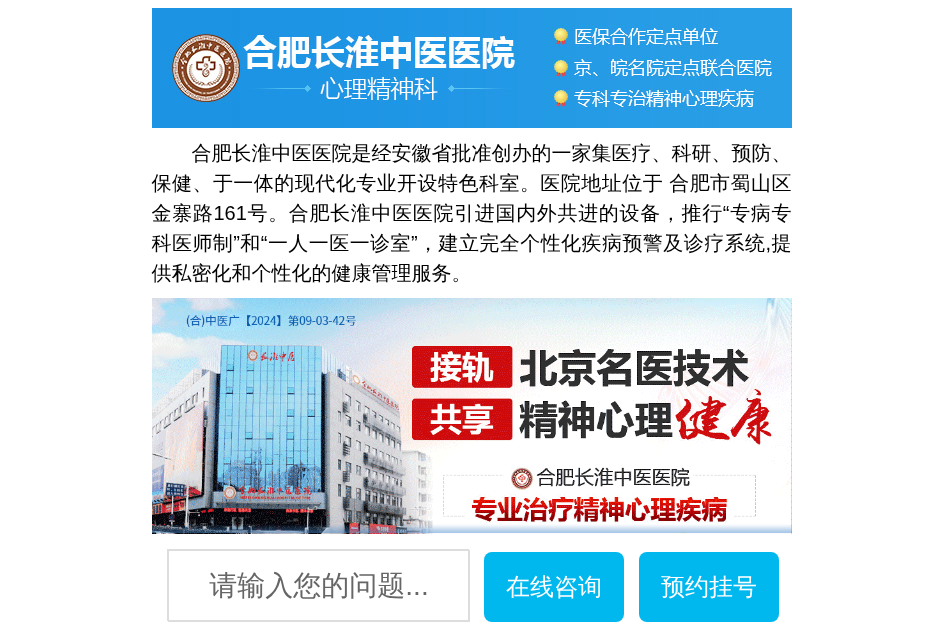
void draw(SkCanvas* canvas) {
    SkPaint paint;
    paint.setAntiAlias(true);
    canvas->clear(0xFFFFFFFF);
    canvas->drawImageRect(SkImages::DeferredFromEncodedData(SkData::MakeFromFileName("img1.png")), SkRect::MakeXYWH(151, 8, 641, 614), SkSamplingOptions());
}
